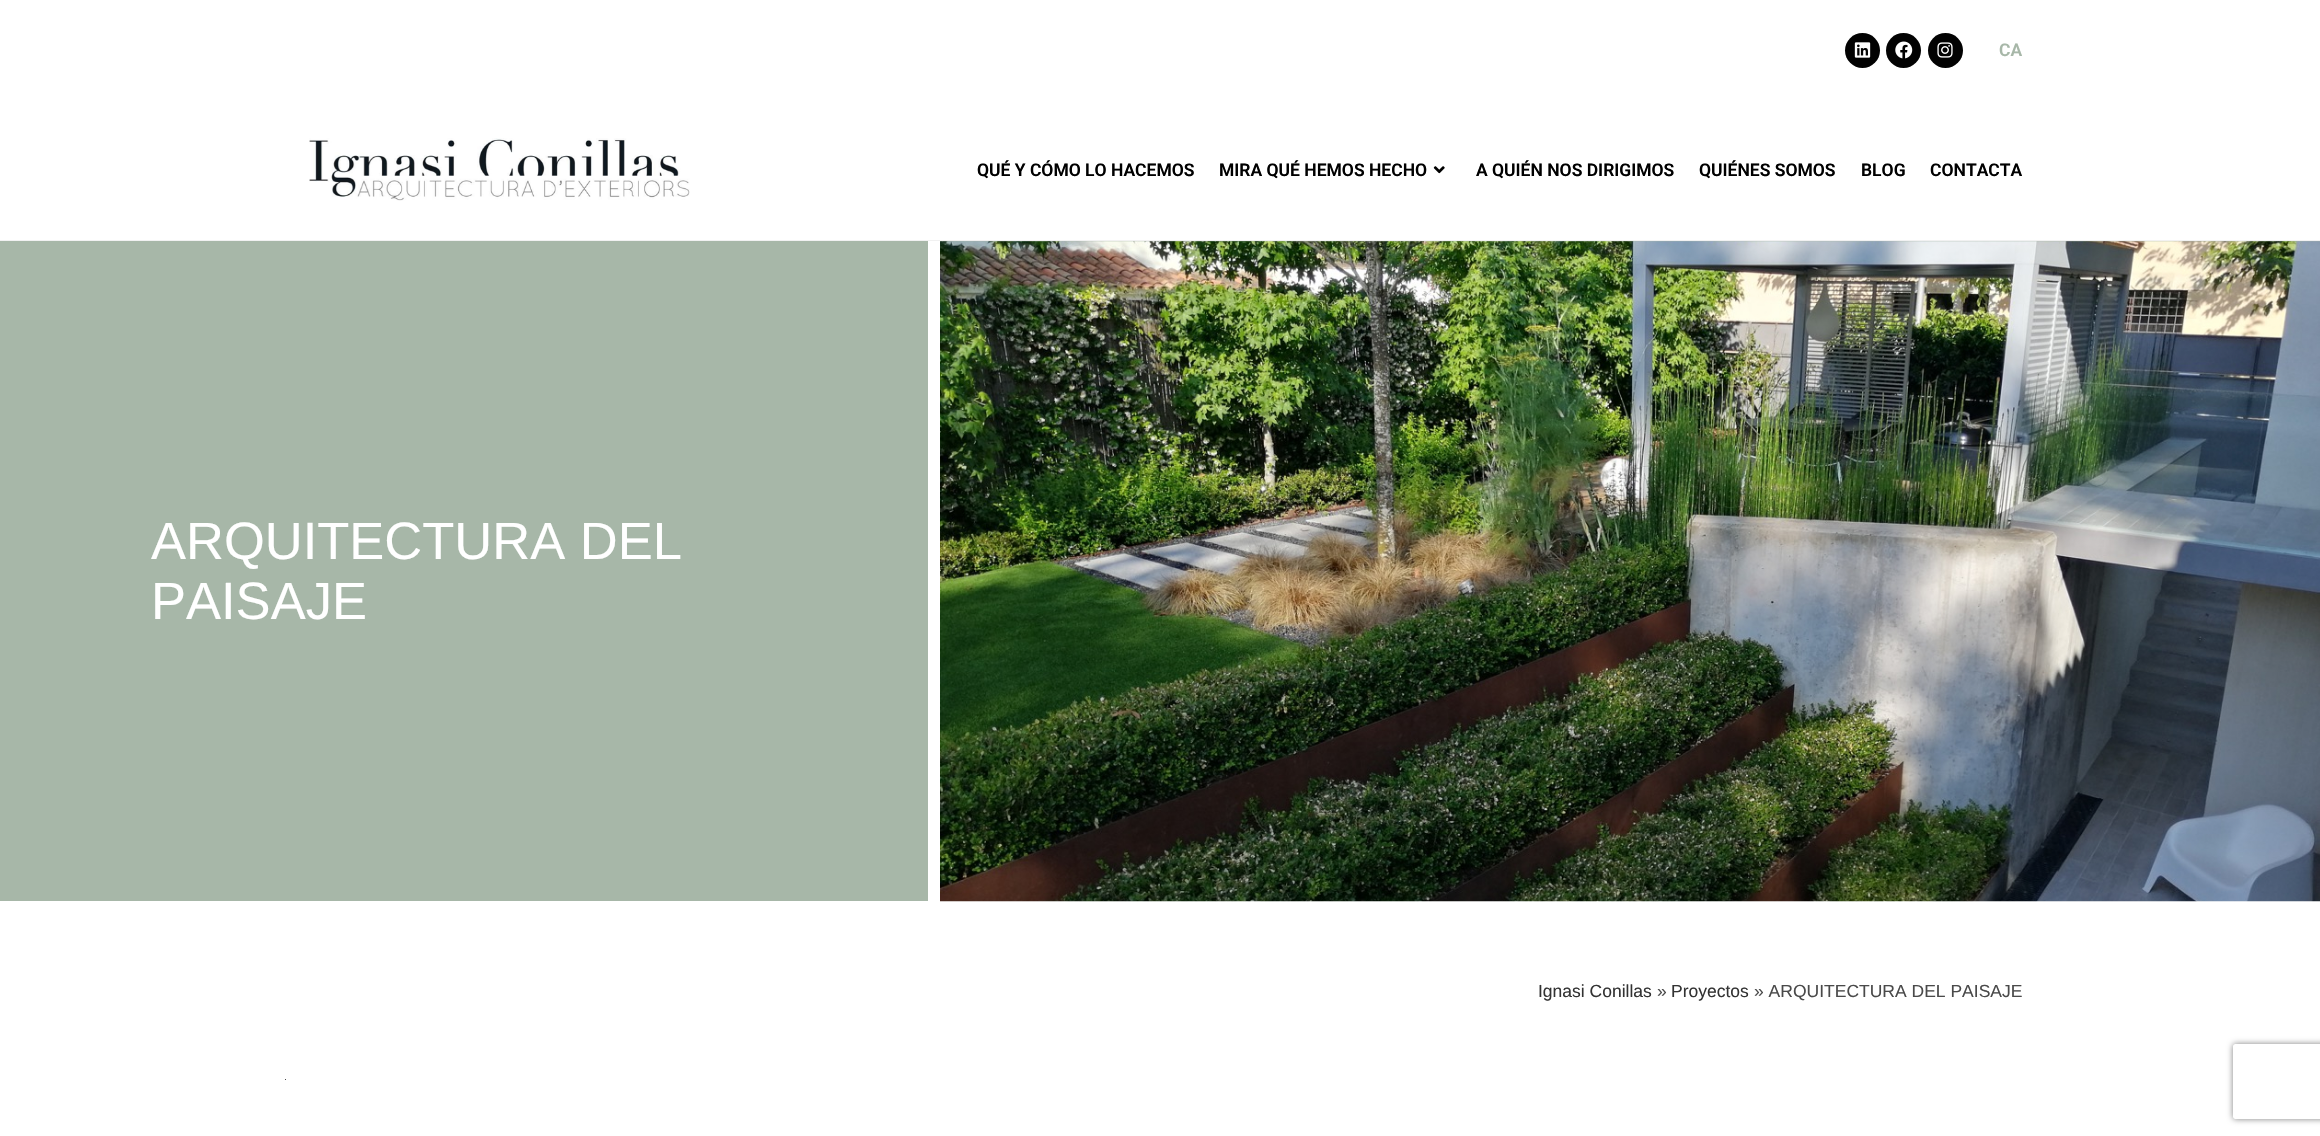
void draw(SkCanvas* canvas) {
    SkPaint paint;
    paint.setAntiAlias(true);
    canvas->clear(0xFFFFFFFF);
    paint.setColor(0xFFF1F1F1);
    canvas->drawRect(SkRect::MakeXYWH(0, 240, 2320, 1), paint);
    paint.setColor(0xFF020202);
    canvas->drawCircle(1862.5f, 50.5f, 17.5f, paint);
    canvas->drawImageRect(SkImages::DeferredFromEncodedData(SkData::MakeFromFileName("img1.png")), SkRect::MakeXYWH(1854, 42, 17, 16), SkSamplingOptions());
    canvas->drawCircle(1903.5f, 50.5f, 17.5f, paint);
    canvas->drawImageRect(SkImages::DeferredFromEncodedData(SkData::MakeFromFileName("img2.png")), SkRect::MakeXYWH(1895, 41, 18, 18), SkSamplingOptions());
    canvas->drawCircle(1945.5f, 50.5f, 17.5f, paint);
    canvas->drawImageRect(SkImages::DeferredFromEncodedData(SkData::MakeFromFileName("img3.png")), SkRect::MakeXYWH(1937, 42, 16, 16), SkSamplingOptions());
    SkFont font1(fontMgr->matchFamilyStyle("Roboto", SkFontStyle(600, SkFontStyle::kNormal_Width, SkFontStyle::kUpright_Slant)), 17.5f);
    font1.setSubpixel(true);
    paint.setColor(0xFFA7B7A8);
    canvas->drawString("CA", 1999, 56, font1, paint);
    canvas->drawImageRect(SkImages::DeferredFromEncodedData(SkData::MakeFromFileName("img4.png")), SkRect::MakeXYWH(309, 138, 381, 63), SkSamplingOptions());
    paint.setColor(0xFF000000);
    canvas->drawString("QUÉ Y CÓMO LO HACEMOS", 977, 176, font1, paint);
    canvas->drawString("MIRA QUÉ HEMOS HECHO", 1219, 176, font1, paint);
    canvas->drawImageRect(SkImages::DeferredFromEncodedData(SkData::MakeFromFileName("img5.png")), SkRect::MakeXYWH(1433, 166, 12, 8), SkSamplingOptions());
    canvas->drawString("A QUIÉN NOS DIRIGIMOS", 1476, 176, font1, paint);
    canvas->drawString("QUIÉNES SOMOS", 1699, 176, font1, paint);
    canvas->drawString("BLOG", 1861, 176, font1, paint);
    canvas->drawString("CONTACTA", 1930, 176, font1, paint);
    paint.setColor(0xFFA7B7A8);
    canvas->drawRect(SkRect::MakeXYWH(0, 241, 2320, 660), paint);
    SkFont font2(fontMgr->matchFamilyStyle("Liberation Sans", SkFontStyle::Normal()), 52.5f);
    font2.setSubpixel(true);
    paint.setColor(0xFFFFFFFF);
    canvas->drawString("ARQUITECTURA DEL", 151, 559, font2, paint);
    canvas->drawString("PAISAJE", 151, 619, font2, paint);
    canvas->drawImageRect(SkImages::DeferredFromEncodedData(SkData::MakeFromFileName("img6.png")), SkRect::MakeXYWH(940, 241, 1380, 661), SkSamplingOptions());
    canvas->drawRect(SkRect::MakeXYWH(928, 241, 12, 660), paint);
    SkFont font3(fontMgr->matchFamilyStyle("Liberation Sans", SkFontStyle::Normal()), 17.5f);
    font3.setSubpixel(true);
    paint.setColor(0xFF333333);
    canvas->drawString("Ignasi Conillas", 1538, 997, font3, paint);
    paint.setColor(0xFF4A4A4A);
    canvas->drawString("»", 1657, 997, font3, paint);
    paint.setColor(0xFF333333);
    canvas->drawString("Proyectos", 1671, 997, font3, paint);
    paint.setColor(0xFF4A4A4A);
    canvas->drawString("» ARQUITECTURA DEL PAISAJE", 1754, 997, font3, paint);
    canvas->drawRect(SkRect::MakeXYWH(285, 1079, 1, 1), paint);
    canvas->save();
    canvas->clipPath(SkPathBuilder(SkPathFillType::kEvenOdd).moveTo(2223, 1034).lineTo(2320, 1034).lineTo(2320, 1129).lineTo(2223, 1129).close().moveTo(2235.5f, 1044).lineTo(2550.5f, 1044).cubicTo(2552, 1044, 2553, 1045, 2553, 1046.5f).lineTo(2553, 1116.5f).cubicTo(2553, 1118, 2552, 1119, 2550.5f, 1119).lineTo(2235.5f, 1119).cubicTo(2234, 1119, 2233, 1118, 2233, 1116.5f).lineTo(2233, 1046.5f).cubicTo(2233, 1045, 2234, 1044, 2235.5f, 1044).close().detach(), true);
    paint.setColor(0xFF808080);
    paint.setMaskFilter(SkMaskFilter::MakeBlur(kNormal_SkBlurStyle, 3));
    canvas->drawRoundRect(SkRect::MakeXYWH(2233, 1044, 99, 75), 2.5f, 2.5f, paint);
    paint.setMaskFilter(nullptr);
    canvas->restore();
}
